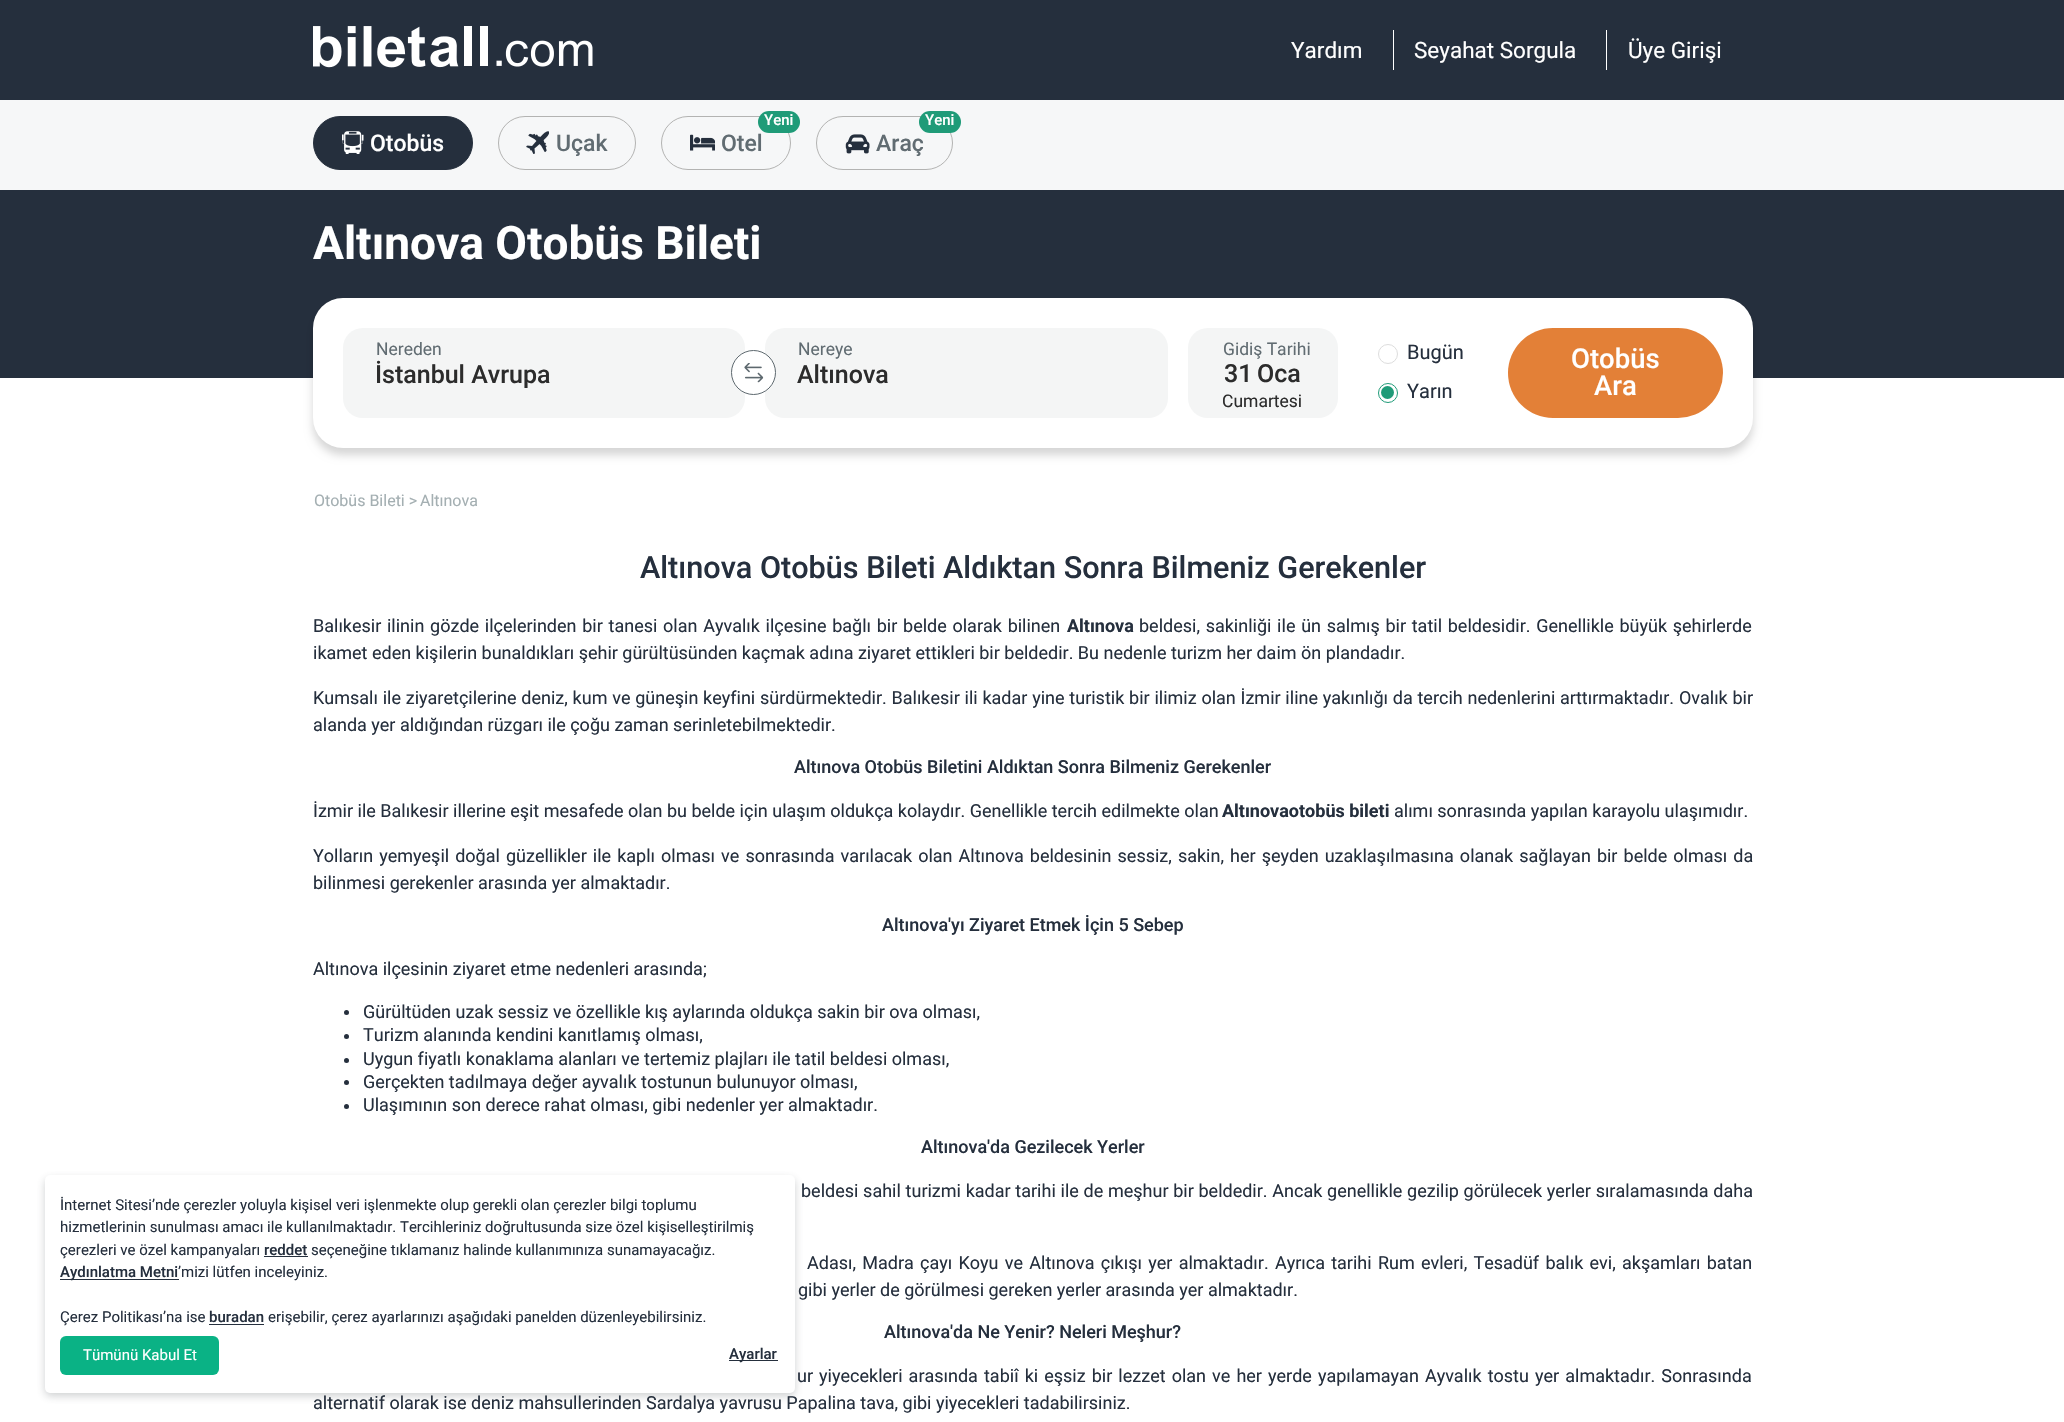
void draw(SkCanvas* canvas) {
    SkPaint paint;
    paint.setAntiAlias(true);
    auto spacedText = [&](const char* s, float x, float y, const SkFont& font, const SkPaint& ink, float letter, float word) {
        std::vector<SkGlyphID> glyphs(font.countText(s, strlen(s), SkTextEncoding::kUTF8));
        std::vector<float> xs(glyphs.size());
        font.textToGlyphs(s, strlen(s), SkTextEncoding::kUTF8, glyphs);
        font.getXPos(glyphs, xs, x);
        float extra = 0;
        for (size_t i = 0; i < glyphs.size(); i++) {
            xs[i] += extra;
            extra += letter + word * (glyphs[i] == font.unicharToGlyph(' '));
        }
        canvas->drawTextBlob(SkTextBlob::MakeFromPosHGlyphs(glyphs, xs, y, font), 0, 0, ink);
    };
    canvas->clear(0xFFFFFFFF);
    paint.setColor(0xFF252F3D);
    canvas->drawRect(SkRect::MakeXYWH(0, 0, 2064, 100), paint);
    canvas->drawImageRect(SkImages::DeferredFromEncodedData(SkData::MakeFromFileName("img1.png")), SkRect::MakeXYWH(313, 26, 280, 42), SkSamplingOptions());
    SkFont font1(fontMgr->matchFamilyStyle("Roboto", SkFontStyle::Normal()), 22.5f);
    font1.setSubpixel(true);
    paint.setColor(0xFFFFFFFF);
    canvas->drawString("Yardım", 1291, 58, font1, paint);
    canvas->drawRect(SkRect::MakeXYWH(1393, 30, 1, 40), paint);
    canvas->drawString("Seyahat Sorgula", 1414, 58, font1, paint);
    canvas->drawRect(SkRect::MakeXYWH(1606, 30, 1, 40), paint);
    canvas->drawString("Üye Girişi", 1628, 58, font1, paint);
    paint.setColor(0xFFF6F7F8);
    canvas->drawRect(SkRect::MakeXYWH(0, 100, 2064, 90), paint);
    paint.setColor(0xFF252F3D);
    canvas->drawRoundRect(SkRect::MakeXYWH(313.5f, 116.5f, 159, 53), 26.5f, 26.5f, paint);
    paint.setStyle(SkPaint::kStroke_Style);
    paint.setStrokeWidth(1);
    canvas->drawRoundRect(SkRect::MakeXYWH(313.5f, 116.5f, 159, 53), 26.5f, 26.5f, paint);
    canvas->drawImageRect(SkImages::DeferredFromEncodedData(SkData::MakeFromFileName("img2.png")), SkRect::MakeXYWH(342, 131, 22, 23), SkSamplingOptions());
    SkFont font2(fontMgr->matchFamilyStyle("Roboto", SkFontStyle(500, SkFontStyle::kNormal_Width, SkFontStyle::kUpright_Slant)), 23);
    font2.setSubpixel(true);
    paint.setStyle(SkPaint::kFill_Style);
    paint.setColor(0xFFFFFFFF);
    canvas->drawString("Otobüs", 370, 151, font2, paint);
    paint.setStyle(SkPaint::kStroke_Style);
    paint.setColor(0xFFB3B3B2);
    canvas->drawRoundRect(SkRect::MakeXYWH(498.5f, 116.5f, 137, 53), 26.5f, 26.5f, paint);
    canvas->drawImageRect(SkImages::DeferredFromEncodedData(SkData::MakeFromFileName("img3.png")), SkRect::MakeXYWH(526, 131, 23, 23), SkSamplingOptions());
    paint.setStyle(SkPaint::kFill_Style);
    paint.setColor(0xFF616C72);
    canvas->drawString("Uçak", 556, 151, font2, paint);
    paint.setStyle(SkPaint::kStroke_Style);
    paint.setColor(0xFFB3B3B2);
    canvas->drawRoundRect(SkRect::MakeXYWH(661.5f, 116.5f, 129, 53), 26.5f, 26.5f, paint);
    paint.setStyle(SkPaint::kFill_Style);
    paint.setColor(0xFF1F9B78);
    canvas->drawRoundRect(SkRect::MakeXYWH(758, 111, 42, 22), 11, 11, paint);
    SkFont font3(fontMgr->matchFamilyStyle("Roboto", SkFontStyle(500, SkFontStyle::kNormal_Width, SkFontStyle::kUpright_Slant)), 15);
    font3.setSubpixel(true);
    paint.setColor(0xFFFFFFFF);
    canvas->drawString("Yeni", 764, 125, font3, paint);
    canvas->drawImageRect(SkImages::DeferredFromEncodedData(SkData::MakeFromFileName("img4.png")), SkRect::MakeXYWH(690, 134, 25, 17), SkSamplingOptions());
    paint.setColor(0xFF616C72);
    canvas->drawString("Otel", 721, 151, font2, paint);
    paint.setStyle(SkPaint::kStroke_Style);
    paint.setColor(0xFFB3B3B2);
    canvas->drawRoundRect(SkRect::MakeXYWH(816.5f, 116.5f, 136, 53), 26.5f, 26.5f, paint);
    paint.setStyle(SkPaint::kFill_Style);
    paint.setColor(0xFF1F9B78);
    canvas->drawRoundRect(SkRect::MakeXYWH(919, 111, 42, 22), 11, 11, paint);
    paint.setColor(0xFFFFFFFF);
    canvas->drawString("Yeni", 925, 125, font3, paint);
    canvas->drawImageRect(SkImages::DeferredFromEncodedData(SkData::MakeFromFileName("img5.png")), SkRect::MakeXYWH(845, 134, 25, 20), SkSamplingOptions());
    paint.setColor(0xFF616C72);
    canvas->drawString("Araç", 876, 151, font2, paint);
    paint.setColor(0xFF252F3D);
    canvas->drawRect(SkRect::MakeXYWH(0, 190, 2064, 188), paint);
    SkFont font4(fontMgr->matchFamilyStyle("Roboto", SkFontStyle::Bold()), 46);
    font4.setSubpixel(true);
    paint.setColor(0xFFFFFFFF);
    canvas->drawString("Altınova Otobüs Bileti", 313, 259, font4, paint);
    paint.setColor(0x29000000);
    paint.setMaskFilter(SkMaskFilter::MakeBlur(kNormal_SkBlurStyle, 4));
    canvas->drawRoundRect(SkRect::MakeXYWH(313, 305, 1440, 150), 30, 30, paint);
    paint.setMaskFilter(nullptr);
    paint.setColor(0xFFFFFFFF);
    canvas->drawRoundRect(SkRect::MakeXYWH(313, 298, 1440, 150), 30, 30, paint);
    paint.setColor(0xFFF4F5F5);
    canvas->drawRoundRect(SkRect::MakeXYWH(343, 328, 402, 90), 20, 20, paint);
    SkFont font5(fontMgr->matchFamilyStyle("Roboto", SkFontStyle::Normal()), 17.5f);
    font5.setSubpixel(true);
    paint.setColor(0xFF616C72);
    canvas->drawString("Nereden", 376, 355, font5, paint);
    SkFont font6(fontMgr->matchFamilyStyle("Roboto", SkFontStyle(500, SkFontStyle::kNormal_Width, SkFontStyle::kUpright_Slant)), 25);
    font6.setSubpixel(true);
    paint.setColor(0xFF2C2C2C);
    canvas->drawString("İstanbul Avrupa", 375, 383, font6, paint);
    paint.setColor(0xFFF4F5F5);
    canvas->drawRoundRect(SkRect::MakeXYWH(765, 328, 403, 90), 20, 20, paint);
    paint.setColor(0xFFFFFFFF);
    canvas->drawCircle(753.5f, 372.5f, 22, paint);
    paint.setStyle(SkPaint::kStroke_Style);
    paint.setColor(0xFF5D686E);
    canvas->drawCircle(753.5f, 372.5f, 22, paint);
    canvas->drawImageRect(SkImages::DeferredFromEncodedData(SkData::MakeFromFileName("img6.png")), SkRect::MakeXYWH(744, 363, 20, 20), SkSamplingOptions());
    paint.setStyle(SkPaint::kFill_Style);
    paint.setColor(0xFF616C72);
    canvas->drawString("Nereye", 798, 355, font5, paint);
    paint.setColor(0xFF2C2C2C);
    canvas->drawString("Altınova", 797, 383, font6, paint);
    paint.setColor(0xFFF4F5F5);
    canvas->drawRoundRect(SkRect::MakeXYWH(1188, 328, 150, 90), 20, 20, paint);
    paint.setColor(0xFF616C72);
    canvas->drawString("Gidiş Tarihi", 1223, 355, font5, paint);
    paint.setColor(0xFF2C2C2C);
    canvas->drawString("31", 1224, 382, font6, paint);
    canvas->drawString("Oca", 1257, 382, font6, paint);
    canvas->drawString("Cumartesi", 1222, 407, font5, paint);
    paint.setStyle(SkPaint::kStroke_Style);
    paint.setColor(0xFFDDDDDD);
    canvas->drawCircle(1388, 354, 9.5f, paint);
    SkFont font7(fontMgr->matchFamilyStyle("Roboto", SkFontStyle::Normal()), 20);
    font7.setSubpixel(true);
    paint.setStyle(SkPaint::kFill_Style);
    paint.setColor(0xFF252F3D);
    canvas->drawString("Bugün", 1407, 359, font7, paint);
    paint.setStyle(SkPaint::kStroke_Style);
    paint.setColor(0xFF1F9B78);
    canvas->drawCircle(1388, 393, 9.5f, paint);
    paint.setStyle(SkPaint::kFill_Style);
    canvas->drawCircle(1387.5f, 392.5f, 6.5f, paint);
    paint.setColor(0xFF252F3D);
    canvas->drawString("Yarın", 1407, 398, font7, paint);
    paint.setColor(0xFFE38037);
    canvas->drawRoundRect(SkRect::MakeXYWH(1508, 328, 215, 90), 45, 45, paint);
    SkFont font8(fontMgr->matchFamilyStyle("Roboto", SkFontStyle(500, SkFontStyle::kNormal_Width, SkFontStyle::kUpright_Slant)), 27.5f);
    font8.setSubpixel(true);
    paint.setColor(0xFFFFFFFF);
    canvas->drawString("Otobüs", 1571, 368, font8, paint);
    canvas->drawString("Ara", 1594, 395, font8, paint);
    SkFont font9(fontMgr->matchFamilyStyle("Roboto", SkFontStyle::Normal()), 16);
    font9.setSubpixel(true);
    paint.setColor(0xFFA4AFB2);
    canvas->drawString("Otobüs Bileti >", 314, 506, font9, paint);
    canvas->drawString("Altınova", 420, 506, font9, paint);
    SkFont font10(fontMgr->matchFamilyStyle("Roboto", SkFontStyle(500, SkFontStyle::kNormal_Width, SkFontStyle::kUpright_Slant)), 30.6f);
    font10.setSubpixel(true);
    paint.setColor(0xFF252F3D);
    canvas->drawString("Altınova Otobüs Bileti Aldıktan Sonra Bilmeniz Gerekenler", 640, 578, font10, paint);
    SkFont font11(fontMgr->matchFamilyStyle("Roboto", SkFontStyle::Normal()), 18);
    font11.setSubpixel(true);
    spacedText("Balıkesir ilinin gözde ilçelerinden bir tanesi olan Ayvalık ilçesine bağlı bir belde olarak bilinen", 313, 632, font11, paint, 0, 1.25f);
    SkFont font12(fontMgr->matchFamilyStyle("Roboto", SkFontStyle::Bold()), 18);
    font12.setSubpixel(true);
    canvas->drawString("Altınova", 1067, 632, font12, paint);
    spacedText("beldesi, sakinliği ile ün salmış bir tatil beldesidir. Genellikle büyük şehirlerde", 1139, 632, font11, paint, 0, 1.25f);
    canvas->drawString("ikamet eden kişilerin bunaldıkları şehir gürültüsünden kaçmak adına ziyaret ettikleri bir beldedir. Bu nedenle turizm her daim ön plandadır.", 313, 659, font11, paint);
    spacedText("Kumsalı ile ziyaretçilerine deniz, kum ve güneşin keyfini sürdürmektedir. Balıkesir ili kadar yine turistik bir ilimiz olan İzmir iline yakınlığı da tercih nedenlerini arttırmaktadır. Ovalık bir", 313, 704, font11, paint, 0, 0.3f);
    canvas->drawString("alanda yer aldığından rüzgarı ile çoğu zaman serinletebilmektedir.", 313, 731, font11, paint);
    SkFont font13(fontMgr->matchFamilyStyle("Roboto", SkFontStyle(500, SkFontStyle::kNormal_Width, SkFontStyle::kUpright_Slant)), 18);
    font13.setSubpixel(true);
    canvas->drawString("Altınova Otobüs Biletini Aldıktan Sonra Bilmeniz Gerekenler", 794, 773, font13, paint);
    canvas->drawString("İzmir ile Balıkesir illerine eşit mesafede olan bu belde için ulaşım oldukça kolaydır. Genellikle tercih edilmekte olan", 313, 817, font11, paint);
    canvas->drawString("Altınovaotobüs bileti", 1222, 817, font12, paint);
    canvas->drawString("alımı sonrasında yapılan karayolu ulaşımıdır.", 1394, 817, font11, paint);
    spacedText("Yolların yemyeşil doğal güzellikler ile kaplı olması ve sonrasında varılacak olan Altınova beldesinin sessiz, sakin, her şeyden uzaklaşılmasına olanak sağlayan bir belde olması da", 313, 862, font11, paint, 0, 1.6f);
    canvas->drawString("bilinmesi gerekenler arasında yer almaktadır.", 313, 889, font11, paint);
    canvas->drawString("Altınova'yı Ziyaret Etmek İçin 5 Sebep", 882, 931, font13, paint);
    canvas->drawString("Altınova ilçesinin ziyaret etme nedenleri arasında;", 313, 975, font11, paint);
    canvas->drawCircle(346.5f, 1012.5f, 2.5f, paint);
    canvas->drawString("Gürültüden uzak sessiz ve özellikle kış aylarında oldukça sakin bir ova olması,", 363, 1018, font11, paint);
    canvas->drawCircle(346.5f, 1036.5f, 2.5f, paint);
    canvas->drawString("Turizm alanında kendini kanıtlamış olması,", 363, 1041, font11, paint);
    canvas->drawCircle(346.5f, 1060.5f, 2.5f, paint);
    canvas->drawString("Uygun fiyatlı konaklama alanları ve tertemiz plajları ile tatil beldesi olması,", 363, 1065, font11, paint);
    canvas->drawCircle(346.5f, 1082.5f, 2.5f, paint);
    canvas->drawString("Gerçekten tadılmaya değer ayvalık tostunun bulunuyor olması,", 363, 1088, font11, paint);
    canvas->drawCircle(346.5f, 1106.5f, 2.5f, paint);
    canvas->drawString("Ulaşımının son derece rahat olması, gibi nedenler yer almaktadır.", 363, 1111, font11, paint);
    canvas->drawString("Altınova'da Gezilecek Yerler", 921, 1153, font13, paint);
    spacedText("beldesi sahil turizmi kadar tarihi ile de meşhur bir beldedir. Ancak genellikle gezilip görülecek yerler sıralamasında daha", 801, 1197, font11, paint, 0, 0.25f);
    spacedText("Adası, Madra çayı Koyu ve Altınova çıkışı yer almaktadır. Ayrıca tarihi Rum evleri, Tesadüf balık evi, akşamları batan", 807, 1269, font11, paint, 0, 1.8f);
    canvas->drawString("gibi yerler de görülmesi gereken yerler arasında yer almaktadır.", 798, 1296, font11, paint);
    canvas->drawString("Altınova'da Ne Yenir? Neleri Meşhur?", 884, 1338, font13, paint);
    spacedText("ur yiyecekleri arasında tabiî ki eşsiz bir lezzet olan ve her yerde yapılamayan Ayvalık tostu yer almaktadır. Sonrasında", 797, 1382, font11, paint, 0, 1.6f);
    canvas->drawString("alternatif olarak ise deniz mahsullerinden Sardalya yavrusu Papalina tava, gibi yiyecekleri tadabilirsiniz.", 313, 1409, font11, paint);
    paint.setColor(0x403C4448);
    paint.setMaskFilter(SkMaskFilter::MakeBlur(kNormal_SkBlurStyle, 4));
    canvas->drawRoundRect(SkRect::MakeXYWH(45, 1179, 750, 217), 5, 5, paint);
    paint.setMaskFilter(nullptr);
    paint.setColor(0xFFFFFFFF);
    canvas->drawRoundRect(SkRect::MakeXYWH(45, 1175, 750, 218), 5, 5, paint);
    SkFont font14(fontMgr->matchFamilyStyle("Roboto", SkFontStyle::Normal()), 15);
    font14.setSubpixel(true);
    paint.setColor(0xFF252F3D);
    canvas->drawString("İnternet Sitesi’nde çerezler yoluyla kişisel veri işlenmekte olup gerekli olan çerezler bilgi toplumu", 60, 1210, font14, paint);
    canvas->drawString("hizmetlerinin sunulması amacı ile kullanılmaktadır. Tercihleriniz doğrultusunda size özel kişiselleştirilmiş", 60, 1232, font14, paint);
    canvas->drawString("çerezleri ve özel kampanyaları", 60, 1255, font14, paint);
    canvas->drawString("reddet", 264, 1255, font3, paint);
    canvas->drawRect(SkRect::MakeXYWH(264, 1256, 44, 1), paint);
    canvas->drawString("seçeneğine tıklamanız halinde kullanımınıza sunamayacağız.", 311, 1255, font14, paint);
    canvas->drawRect(SkRect::MakeXYWH(60, 1279, 119, 1), paint);
    canvas->drawString("Aydınlatma Metni", 60, 1277, font3, paint);
    canvas->drawString("’mizi lütfen inceleyiniz.", 178, 1277, font14, paint);
    canvas->drawString("Çerez Politikası’na ise", 60, 1322, font14, paint);
    canvas->drawString("buradan", 209, 1322, font3, paint);
    canvas->drawRect(SkRect::MakeXYWH(209, 1324, 55, 1), paint);
    canvas->drawString("erişebilir, çerez ayarlarınızı aşağıdaki panelden düzenleyebilirsiniz.", 268, 1322, font14, paint);
    paint.setColor(0xFF0AB285);
    canvas->drawRoundRect(SkRect::MakeXYWH(60, 1336, 159, 39), 6, 6, paint);
    paint.setColor(0xFFFFFFFF);
    canvas->drawString("Tümünü Kabul Et", 83, 1360, font14, paint);
    paint.setColor(0xFF252F3D);
    canvas->drawRect(SkRect::MakeXYWH(729, 1360, 49, 1), paint);
    canvas->drawString("Ayarlar", 729, 1359, font3, paint);
}
